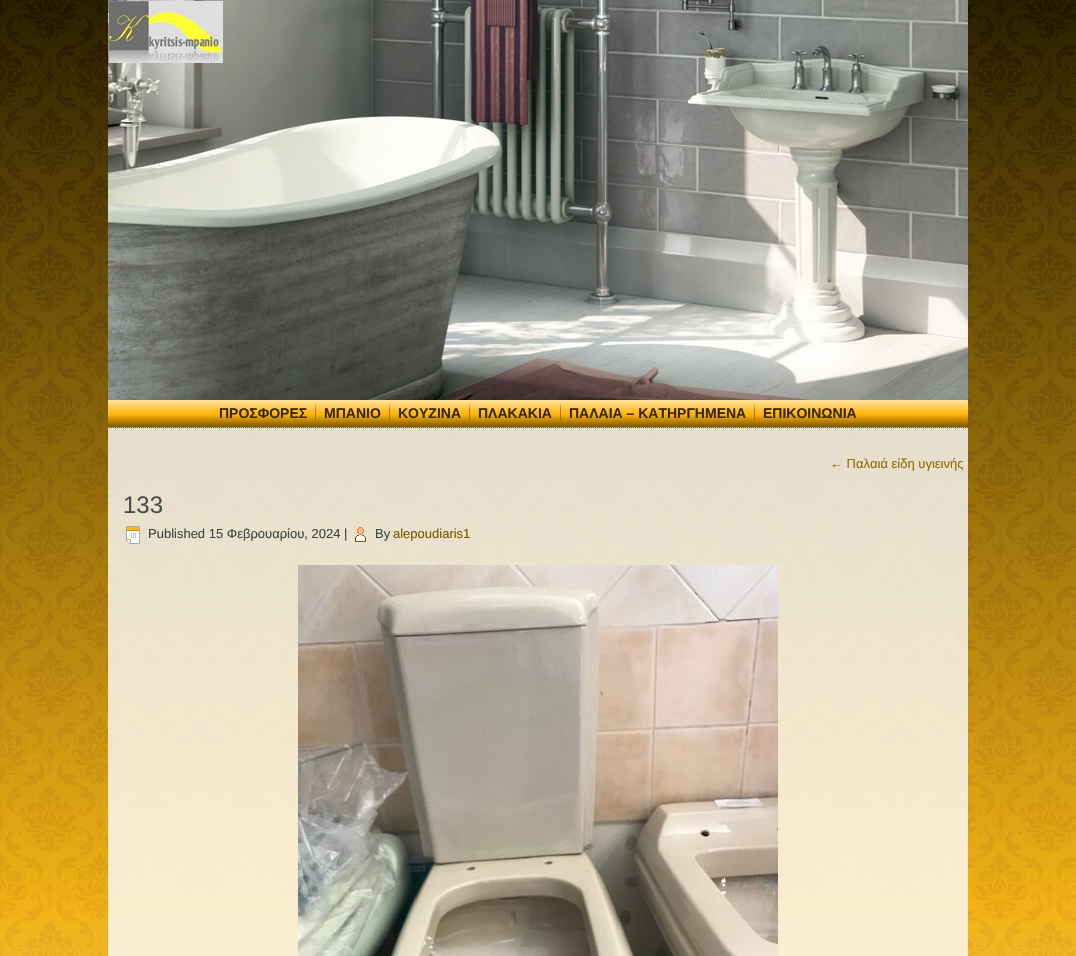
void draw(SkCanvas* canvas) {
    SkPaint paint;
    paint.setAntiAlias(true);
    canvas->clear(0xFFFFFFFF);
    canvas->drawImageRect(SkImages::DeferredFromEncodedData(SkData::MakeFromFileName("img1.png")), SkRect::MakeXYWH(0, 0, 1076, 956), SkSamplingOptions());
    canvas->drawImageRect(SkImages::DeferredFromEncodedData(SkData::MakeFromFileName("img2.png")), SkRect::MakeXYWH(108, 0, 860, 400), SkSamplingOptions());
    canvas->drawImageRect(SkImages::DeferredFromEncodedData(SkData::MakeFromFileName("img3.png")), SkRect::MakeXYWH(109, 1, 114, 62), SkSamplingOptions());
    paint.setColor(0xCCFCFDFD);
    canvas->drawRect(SkRect::MakeXYWH(108, 428, 860, 528), paint);
    {
        const SkColor colors[] = {0xFFFFE3A3, 0xFFFFB200, 0xFF704F00};
        const float stops[] = {0, 0.53f, 1};
        const SkPoint ends[] = {{538, 400}, {538, 428}};
        paint.setShader(SkGradientShader::MakeLinear(ends, colors, stops, 3, SkTileMode::kClamp));
        paint.setAlpha(255);
    }
    canvas->drawRect(SkRect::MakeXYWH(108, 400, 860, 28), paint);
    paint.setStyle(SkPaint::kStroke_Style);
    paint.setStrokeWidth(1);
    paint.setShader(nullptr);
    paint.setColor(0xFFB5C0BC);
    paint.setPathEffect(SkDashPathEffect::Make({{1, 1}}, 0));
    canvas->drawPath(SkPathBuilder().moveTo(108, 427.5f).lineTo(968, 427.5f).detach(), paint);
    paint.setPathEffect(nullptr);
    SkFont font1(fontMgr->matchFamilyStyle("Liberation Sans", SkFontStyle::Bold()), 14);
    font1.setSubpixel(true);
    paint.setStyle(SkPaint::kFill_Style);
    paint.setColor(0xFF382700);
    canvas->drawString("ΠΡΟΣΦΟΡΕΣ", 219, 418, font1, paint);
    canvas->drawImageRect(SkImages::DeferredFromEncodedData(SkData::MakeFromFileName("img4.png")), SkRect::MakeXYWH(315, 404, 1, 19), SkSamplingOptions());
    canvas->drawString("ΜΠΑΝΙΟ", 324, 418, font1, paint);
    canvas->drawImageRect(SkImages::DeferredFromEncodedData(SkData::MakeFromFileName("img4.png")), SkRect::MakeXYWH(389, 404, 1, 19), SkSamplingOptions());
    canvas->drawString("ΚΟΥΖΙΝΑ", 398, 418, font1, paint);
    canvas->drawImageRect(SkImages::DeferredFromEncodedData(SkData::MakeFromFileName("img4.png")), SkRect::MakeXYWH(469, 404, 1, 19), SkSamplingOptions());
    canvas->drawString("ΠΛΑΚΑΚΙΑ", 478, 418, font1, paint);
    canvas->drawImageRect(SkImages::DeferredFromEncodedData(SkData::MakeFromFileName("img4.png")), SkRect::MakeXYWH(560, 404, 1, 19), SkSamplingOptions());
    canvas->drawString("ΠΑΛΑΙΑ – ΚΑΤΗΡΓΗΜΕΝΑ", 569, 418, font1, paint);
    canvas->drawImageRect(SkImages::DeferredFromEncodedData(SkData::MakeFromFileName("img4.png")), SkRect::MakeXYWH(754, 404, 1, 19), SkSamplingOptions());
    canvas->drawString("ΕΠΙΚΟΙΝΩΝΙΑ", 763, 418, font1, paint);
    SkFont font2(fontMgr->matchFamilyStyle("Liberation Sans", SkFontStyle::Normal()), 13);
    font2.setSubpixel(true);
    paint.setColor(0xFF946800);
    canvas->drawString("← Παλαιά είδη υγιεινής", 830, 468, font2, paint);
    SkFont font3(fontMgr->matchFamilyStyle("Liberation Sans", SkFontStyle::Normal()), 24);
    font3.setSubpixel(true);
    paint.setColor(0xFF44504C);
    canvas->drawString("133", 123, 513, font3, paint);
    canvas->drawImageRect(SkImages::DeferredFromEncodedData(SkData::MakeFromFileName("img5.png")), SkRect::MakeXYWH(126, 526, 14, 18), SkSamplingOptions());
    paint.setColor(0xFF3B4541);
    canvas->drawString("Published 15 Φεβρουαρίου, 2024 |", 148, 538, font2, paint);
    canvas->drawImageRect(SkImages::DeferredFromEncodedData(SkData::MakeFromFileName("img6.png")), SkRect::MakeXYWH(355, 527, 11, 15), SkSamplingOptions());
    canvas->drawString("By", 375, 538, font2, paint);
    paint.setColor(0xFF7A5600);
    canvas->drawString("alepoudiaris1", 393, 538, font2, paint);
    canvas->drawImageRect(SkImages::DeferredFromEncodedData(SkData::MakeFromFileName("img7.png")), SkRect::MakeXYWH(298, 565, 480, 391), SkSamplingOptions());
}
